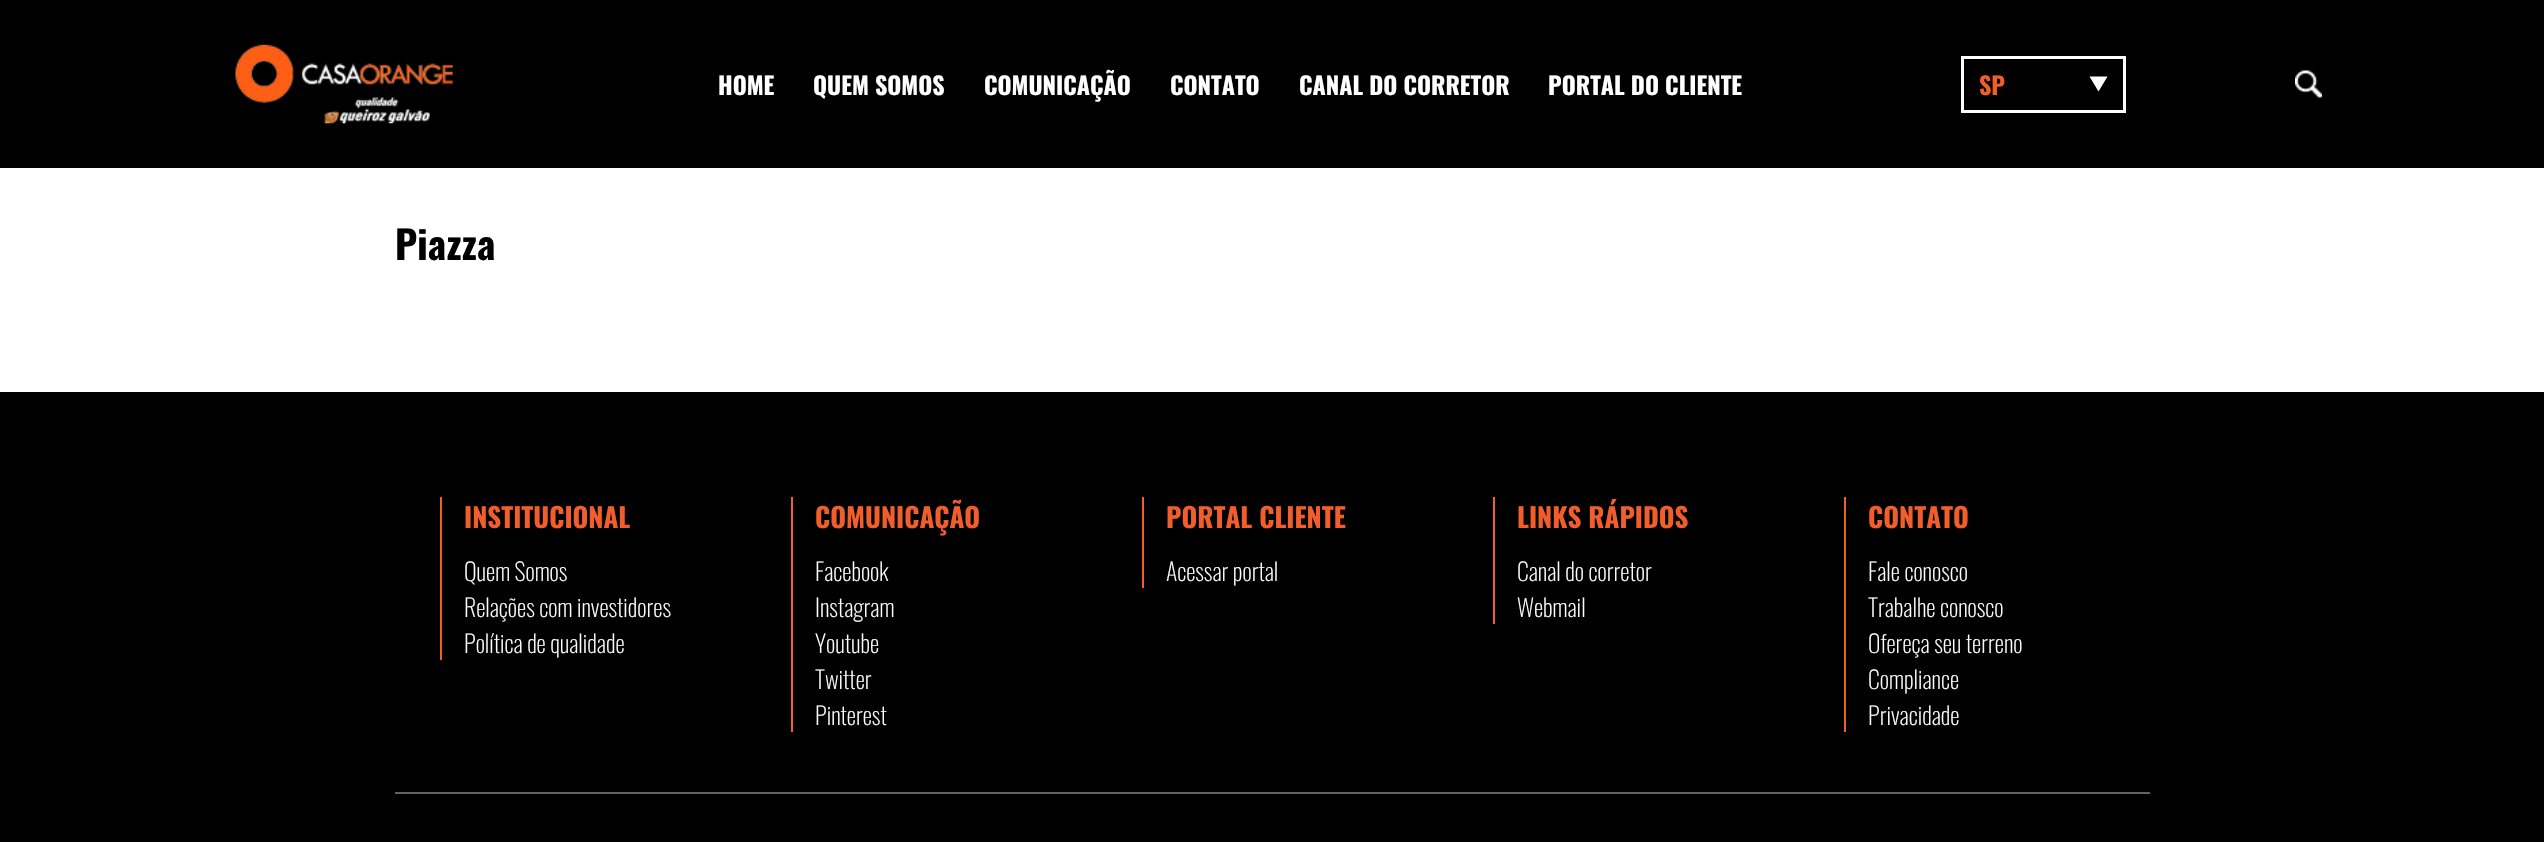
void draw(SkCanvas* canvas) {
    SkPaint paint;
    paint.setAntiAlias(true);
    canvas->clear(0xFFFFFFFF);
    paint.setColor(0xFF000000);
    canvas->drawRect(SkRect::MakeXYWH(0, 0, 2544, 168), paint);
    canvas->drawImageRect(SkImages::DeferredFromEncodedData(SkData::MakeFromFileName("img1.png")), SkRect::MakeXYWH(235, 44, 218, 80), SkSamplingOptions());
    SkFont font1(fontMgr->matchFamilyStyle("Oswald", SkFontStyle::Bold()), 24);
    font1.setSubpixel(true);
    paint.setColor(0xFFFFFFFF);
    canvas->drawString("HOME", 718, 95, font1, paint);
    canvas->drawString("QUEM SOMOS", 813, 95, font1, paint);
    canvas->drawString("COMUNICAÇÃO", 984, 95, font1, paint);
    canvas->drawString("CONTATO", 1170, 95, font1, paint);
    canvas->drawString("CANAL DO CORRETOR", 1299, 95, font1, paint);
    canvas->drawString("PORTAL DO CLIENTE", 1548, 95, font1, paint);
    paint.setStyle(SkPaint::kStroke_Style);
    paint.setStrokeWidth(3);
    canvas->drawRect(SkRect::MakeXYWH(1962.5f, 57.5f, 162, 54), paint);
    paint.setStyle(SkPaint::kFill_Style);
    paint.setColor(0xFFF15E2B);
    canvas->drawString("SP", 1979, 95, font1, paint);
    paint.setColor(0xFFFFFFFF);
    canvas->drawPath(SkPathBuilder().moveTo(2089.5f, 76.5f).lineTo(2107.5f, 76.5f).lineTo(2098.5f, 91.5f).close().detach(), paint);
    canvas->drawImageRect(SkImages::DeferredFromEncodedData(SkData::MakeFromFileName("img2.png")), SkRect::MakeXYWH(2295, 70, 27, 28), SkSamplingOptions());
    SkFont font2(fontMgr->matchFamilyStyle("Oswald", SkFontStyle::Bold()), 39);
    font2.setSubpixel(true);
    paint.setColor(0xFF000000);
    canvas->drawString("Piazza", 395, 260, font2, paint);
    canvas->drawRect(SkRect::MakeXYWH(0, 392, 2544, 450), paint);
    paint.setColor(0xFF626262);
    canvas->drawRect(SkRect::MakeXYWH(395, 792, 1755, 2), paint);
    paint.setColor(0xFFF15E2B);
    canvas->drawRect(SkRect::MakeXYWH(440, 497, 2, 163), paint);
    SkFont font3(fontMgr->matchFamilyStyle("Oswald", SkFontStyle::Bold()), 27);
    font3.setSubpixel(true);
    canvas->drawString("INSTITUCIONAL", 464, 528, font3, paint);
    SkFont font4(fontMgr->matchFamilyStyle("Oswald", SkFontStyle(200, SkFontStyle::kNormal_Width, SkFontStyle::kUpright_Slant)), 24);
    font4.setSubpixel(true);
    paint.setColor(0xFFFFFFFF);
    canvas->drawString("Quem Somos", 464, 581, font4, paint);
    canvas->drawString("Relações com investidores", 464, 617, font4, paint);
    canvas->drawString("Política de qualidade", 464, 653, font4, paint);
    paint.setColor(0xFFF15E2B);
    canvas->drawRect(SkRect::MakeXYWH(791, 497, 2, 235), paint);
    canvas->drawString("COMUNICAÇÃO", 815, 528, font3, paint);
    paint.setColor(0xFFFFFFFF);
    canvas->drawString("Facebook", 815, 581, font4, paint);
    canvas->drawString("Instagram", 815, 617, font4, paint);
    canvas->drawString("Youtube", 815, 653, font4, paint);
    canvas->drawString("Twitter", 815, 689, font4, paint);
    canvas->drawString("Pinterest", 815, 725, font4, paint);
    paint.setColor(0xFFF15E2B);
    canvas->drawRect(SkRect::MakeXYWH(1142, 497, 2, 91), paint);
    canvas->drawString("PORTAL CLIENTE", 1166, 528, font3, paint);
    paint.setColor(0xFFFFFFFF);
    canvas->drawString("Acessar portal", 1166, 581, font4, paint);
    paint.setColor(0xFFF15E2B);
    canvas->drawRect(SkRect::MakeXYWH(1493, 497, 2, 127), paint);
    canvas->drawString("LINKS RÁPIDOS", 1517, 528, font3, paint);
    paint.setColor(0xFFFFFFFF);
    canvas->drawString("Canal do corretor", 1517, 581, font4, paint);
    canvas->drawString("Webmail", 1517, 617, font4, paint);
    paint.setColor(0xFFF15E2B);
    canvas->drawRect(SkRect::MakeXYWH(1844, 497, 2, 235), paint);
    canvas->drawString("CONTATO", 1868, 528, font3, paint);
    paint.setColor(0xFFFFFFFF);
    canvas->drawString("Fale conosco", 1868, 581, font4, paint);
    canvas->drawString("Trabalhe conosco", 1868, 617, font4, paint);
    canvas->drawString("Ofereça seu terreno", 1868, 653, font4, paint);
    canvas->drawString("Compliance", 1868, 689, font4, paint);
    canvas->drawString("Privacidade", 1868, 725, font4, paint);
}
